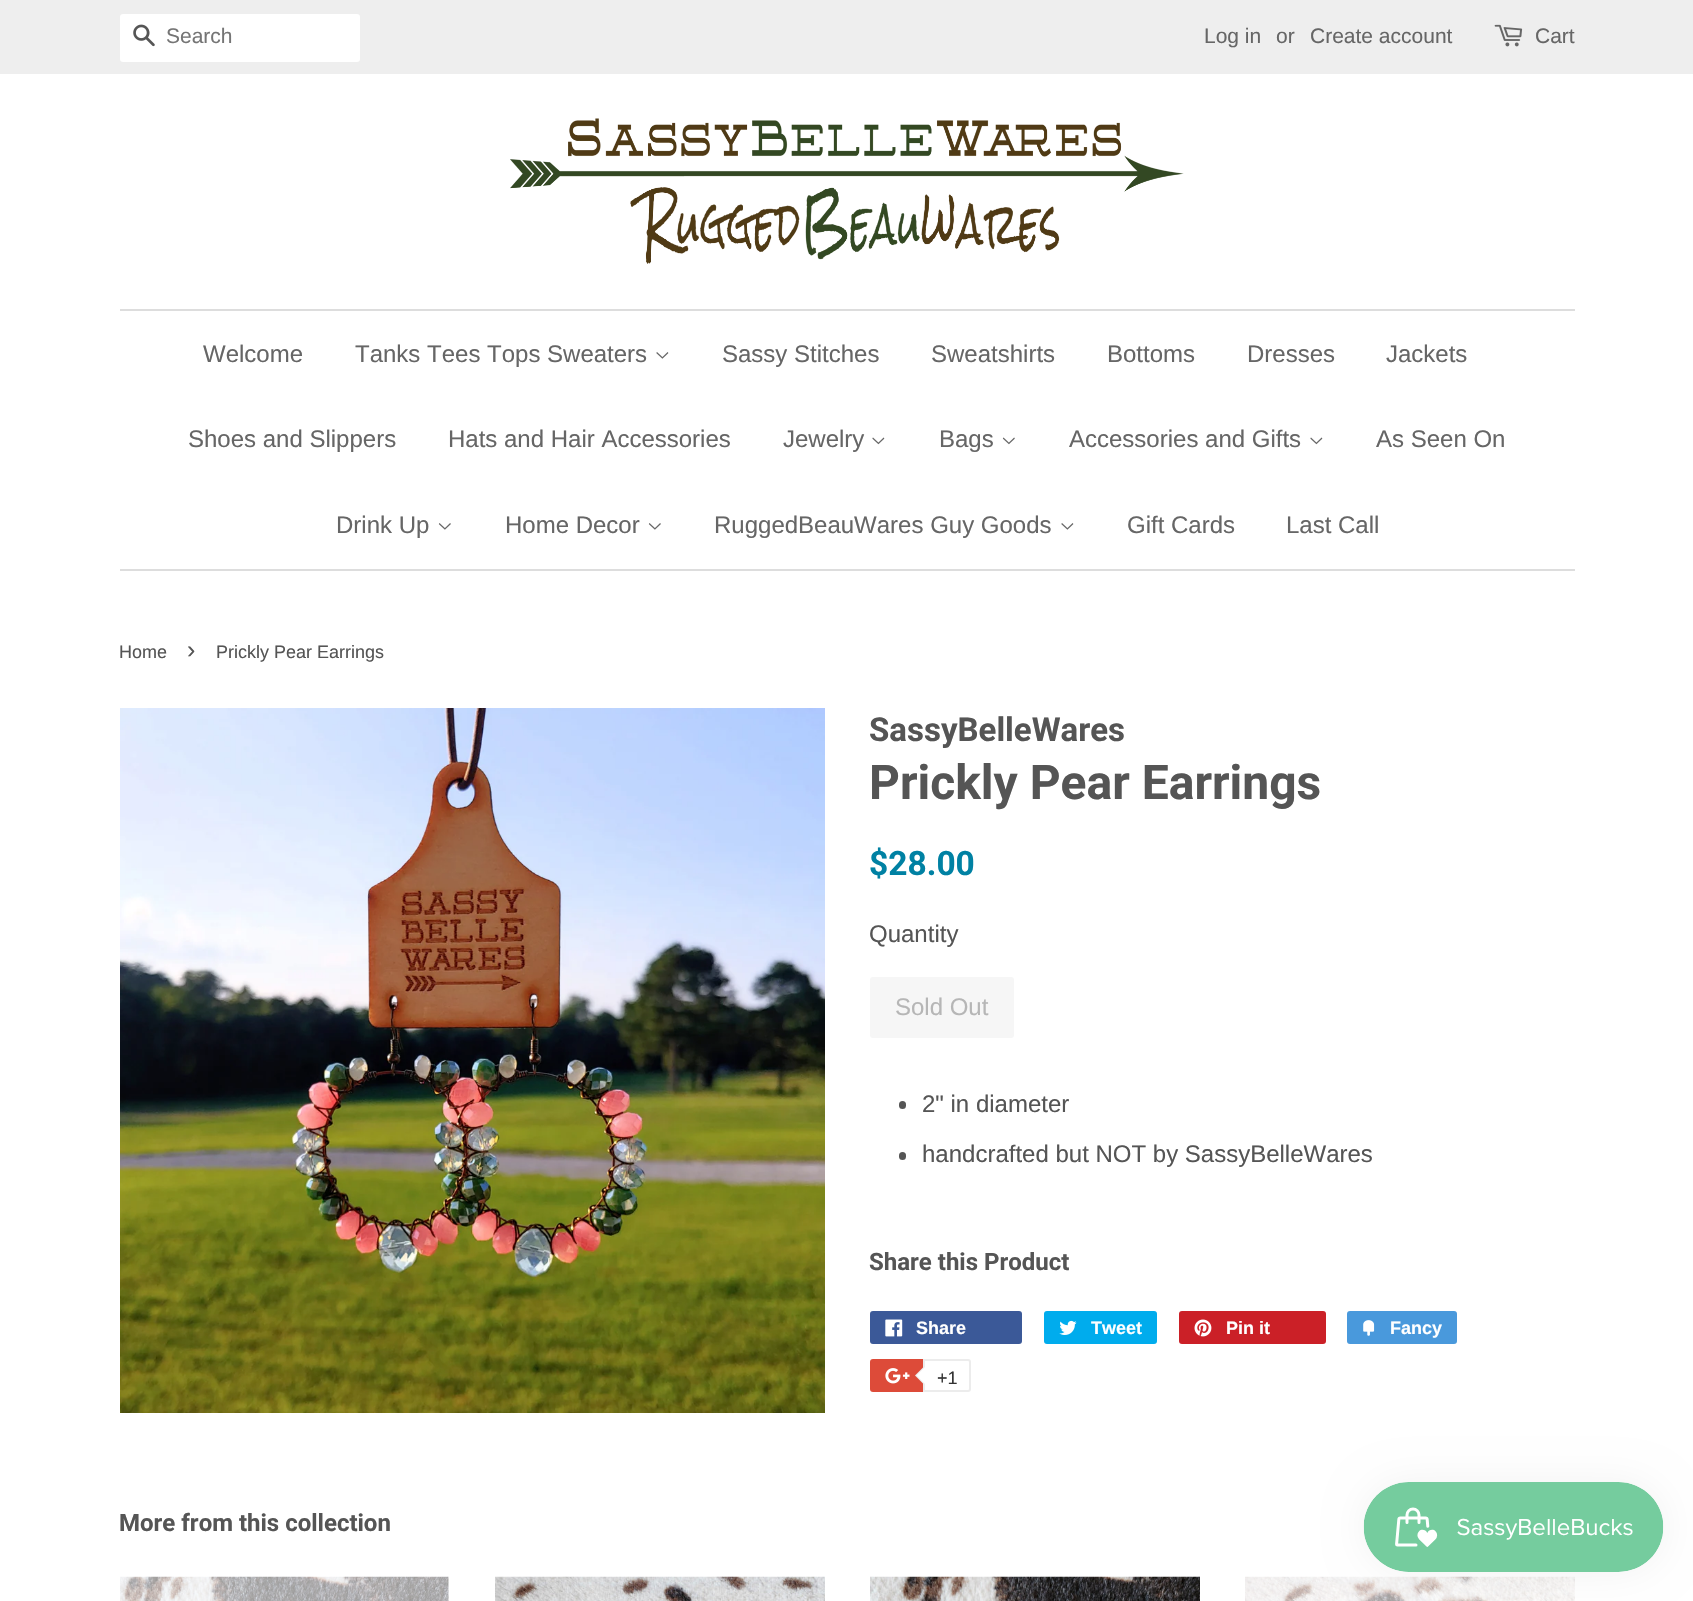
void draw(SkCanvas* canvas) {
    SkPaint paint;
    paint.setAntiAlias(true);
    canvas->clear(0xFFFFFFFF);
    paint.setColor(0xFFEEEEEE);
    canvas->drawRect(SkRect::MakeXYWH(0, 0, 1693, 74), paint);
    paint.setColor(0xFFFFFFFF);
    canvas->drawRoundRect(SkRect::MakeXYWH(120, 14, 240, 48), 3, 3, paint);
    canvas->drawImageRect(SkImages::DeferredFromEncodedData(SkData::MakeFromFileName("img1.png")), SkRect::MakeXYWH(133, 24, 22, 23), SkSamplingOptions());
    SkFont font1(fontMgr->matchFamilyStyle("Liberation Sans", SkFontStyle::Normal()), 21);
    font1.setSubpixel(true);
    paint.setColor(0xFF757575);
    canvas->drawString("Search", 166, 43, font1, paint);
    paint.setColor(0xFF666666);
    canvas->drawString("Log in", 1204, 43, font1, paint);
    canvas->drawString("or", 1276, 43, font1, paint);
    canvas->drawString("Create account", 1310, 43, font1, paint);
    canvas->drawImageRect(SkImages::DeferredFromEncodedData(SkData::MakeFromFileName("img2.png")), SkRect::MakeXYWH(1494, 24, 29, 23), SkSamplingOptions());
    canvas->drawString("Cart", 1535, 43, font1, paint);
    canvas->drawImageRect(SkImages::DeferredFromEncodedData(SkData::MakeFromFileName("img3.png")), SkRect::MakeXYWH(510, 118, 674, 146), SkSamplingOptions());
    paint.setColor(0xFFDDDDDD);
    canvas->drawRect(SkRect::MakeXYWH(120, 309, 1455, 2), paint);
    canvas->drawRect(SkRect::MakeXYWH(120, 569, 1455, 2), paint);
    SkFont font2(fontMgr->matchFamilyStyle("Liberation Sans", SkFontStyle::Normal()), 24);
    font2.setSubpixel(true);
    paint.setColor(0xFF666666);
    canvas->drawString("Welcome", 203, 362, font2, paint);
    canvas->drawString("Tanks Tees Tops Sweaters", 355, 362, font2, paint);
    canvas->drawImageRect(SkImages::DeferredFromEncodedData(SkData::MakeFromFileName("img4.png")), SkRect::MakeXYWH(656, 352, 13, 7), SkSamplingOptions());
    canvas->drawString("Sassy Stitches", 722, 362, font2, paint);
    canvas->drawString("Sweatshirts", 931, 362, font2, paint);
    canvas->drawString("Bottoms", 1107, 362, font2, paint);
    canvas->drawString("Dresses", 1247, 362, font2, paint);
    canvas->drawString("Jackets", 1386, 362, font2, paint);
    canvas->drawString("Shoes and Slippers", 188, 447, font2, paint);
    canvas->drawString("Hats and Hair Accessories", 448, 447, font2, paint);
    canvas->drawString("Jewelry", 783, 447, font2, paint);
    canvas->drawImageRect(SkImages::DeferredFromEncodedData(SkData::MakeFromFileName("img5.png")), SkRect::MakeXYWH(872, 437, 13, 8), SkSamplingOptions());
    canvas->drawString("Bags", 939, 447, font2, paint);
    canvas->drawImageRect(SkImages::DeferredFromEncodedData(SkData::MakeFromFileName("img6.png")), SkRect::MakeXYWH(1002, 437, 13, 8), SkSamplingOptions());
    canvas->drawString("Accessories and Gifts", 1069, 447, font2, paint);
    canvas->drawImageRect(SkImages::DeferredFromEncodedData(SkData::MakeFromFileName("img5.png")), SkRect::MakeXYWH(1310, 437, 13, 8), SkSamplingOptions());
    canvas->drawString("As Seen On", 1376, 447, font2, paint);
    canvas->drawString("Drink Up", 336, 533, font2, paint);
    canvas->drawImageRect(SkImages::DeferredFromEncodedData(SkData::MakeFromFileName("img7.png")), SkRect::MakeXYWH(438, 523, 13, 7), SkSamplingOptions());
    canvas->drawString("Home Decor", 505, 533, font2, paint);
    canvas->drawImageRect(SkImages::DeferredFromEncodedData(SkData::MakeFromFileName("img7.png")), SkRect::MakeXYWH(648, 523, 13, 7), SkSamplingOptions());
    canvas->drawString("RuggedBeauWares Guy Goods", 714, 533, font2, paint);
    canvas->drawImageRect(SkImages::DeferredFromEncodedData(SkData::MakeFromFileName("img4.png")), SkRect::MakeXYWH(1061, 523, 13, 7), SkSamplingOptions());
    canvas->drawString("Gift Cards", 1127, 533, font2, paint);
    canvas->drawString("Last Call", 1286, 533, font2, paint);
    SkFont font3(fontMgr->matchFamilyStyle("Liberation Sans", SkFontStyle::Normal()), 18);
    font3.setSubpixel(true);
    paint.setColor(0xFF555555);
    canvas->drawString("Home", 119, 658, font3, paint);
    SkFont font4(fontMgr->matchFamilyStyle("Liberation Sans", SkFontStyle::Normal()), 25);
    font4.setSubpixel(true);
    canvas->drawString("›", 187, 658, font4, paint);
    canvas->drawString("Prickly Pear Earrings", 216, 658, font3, paint);
    canvas->drawImageRect(SkImages::DeferredFromEncodedData(SkData::MakeFromFileName("img8.png")), SkRect::MakeXYWH(120, 708, 705, 705), SkSamplingOptions());
    SkFont font5(fontMgr->matchFamilyStyle("Roboto", SkFontStyle::Bold()), 33);
    font5.setSubpixel(true);
    canvas->drawString("SassyBelleWares", 869, 741, font5, paint);
    SkFont font6(fontMgr->matchFamilyStyle("Roboto", SkFontStyle::Bold()), 48);
    font6.setSubpixel(true);
    canvas->drawString("Prickly Pear Earrings", 869, 799, font6, paint);
    SkFont font7(fontMgr->matchFamilyStyle("Roboto", SkFontStyle::Bold()), 33.5f);
    font7.setSubpixel(true);
    paint.setColor(0xFF0081A3);
    canvas->drawString("$28.00", 869, 875, font7, paint);
    paint.setColor(0xFF555555);
    canvas->drawString("Quantity", 869, 942, font2, paint);
    paint.setColor(0xFFF6F6F6);
    canvas->drawRoundRect(SkRect::MakeXYWH(870, 977, 144, 61), 3, 3, paint);
    paint.setColor(0xFFB6B6B6);
    canvas->drawString("Sold Out", 895, 1015, font2, paint);
    paint.setColor(0xFF555555);
    canvas->drawRoundRect(SkRect::MakeXYWH(899, 1101, 7, 8), 3.5f, 3.5f, paint);
    canvas->drawString("2\" in diameter", 922, 1112, font2, paint);
    canvas->drawRoundRect(SkRect::MakeXYWH(899, 1152, 7, 8), 3.5f, 3.5f, paint);
    canvas->drawString("handcrafted but NOT by SassyBelleWares", 922, 1162, font2, paint);
    SkFont font8(fontMgr->matchFamilyStyle("Roboto", SkFontStyle::Bold()), 24);
    font8.setSubpixel(true);
    canvas->drawString("Share this Product", 869, 1270, font8, paint);
    paint.setColor(0xFF3B5998);
    canvas->drawRoundRect(SkRect::MakeXYWH(870, 1311, 152, 33), 3, 3, paint);
    canvas->drawImageRect(SkImages::DeferredFromEncodedData(SkData::MakeFromFileName("img9.png")), SkRect::MakeXYWH(885, 1319, 18, 18), SkSamplingOptions());
    SkFont font9(fontMgr->matchFamilyStyle("Liberation Sans", SkFontStyle::Bold()), 18);
    font9.setSubpixel(true);
    paint.setColor(0xFFFFFFFF);
    canvas->drawString("Share", 916, 1334, font9, paint);
    paint.setColor(0xFF00ACED);
    canvas->drawRoundRect(SkRect::MakeXYWH(1044, 1311, 113, 33), 3, 3, paint);
    canvas->drawImageRect(SkImages::DeferredFromEncodedData(SkData::MakeFromFileName("img10.png")), SkRect::MakeXYWH(1059, 1320, 18, 15), SkSamplingOptions());
    paint.setColor(0xFFFFFFFF);
    canvas->drawString("Tweet", 1091, 1334, font9, paint);
    paint.setColor(0xFFCB2027);
    canvas->drawRoundRect(SkRect::MakeXYWH(1179, 1311, 147, 33), 3, 3, paint);
    canvas->drawImageRect(SkImages::DeferredFromEncodedData(SkData::MakeFromFileName("img11.png")), SkRect::MakeXYWH(1194, 1319, 18, 18), SkSamplingOptions());
    paint.setColor(0xFFFFFFFF);
    canvas->drawString("Pin it", 1226, 1334, font9, paint);
    paint.setColor(0xFF4999DC);
    canvas->drawRoundRect(SkRect::MakeXYWH(1347, 1311, 110, 33), 3, 3, paint);
    canvas->drawImageRect(SkImages::DeferredFromEncodedData(SkData::MakeFromFileName("img12.png")), SkRect::MakeXYWH(1363, 1320, 12, 16), SkSamplingOptions());
    paint.setColor(0xFFFFFFFF);
    canvas->drawString("Fancy", 1390, 1334, font9, paint);
    paint.setColor(0xFFDD4B39);
    canvas->drawRoundRect(SkRect::MakeXYWH(870, 1359, 98, 33), 3, 3, paint);
    canvas->drawImageRect(SkImages::DeferredFromEncodedData(SkData::MakeFromFileName("img13.png")), SkRect::MakeXYWH(885, 1368, 25, 16), SkSamplingOptions());
    paint.setColor(0xFFFFFFFF);
    canvas->drawPath(SkPathBuilder().moveTo(924, 1360).lineTo(968, 1360).cubicTo(969, 1360, 970, 1361, 970, 1362).lineTo(970, 1389).cubicTo(970, 1390, 969, 1391, 968, 1391).lineTo(924, 1391).close().detach(), paint);
    paint.setStyle(SkPaint::kStroke_Style);
    paint.setStrokeWidth(2);
    paint.setColor(0xFFECECEC);
    canvas->drawPath(SkPathBuilder().moveTo(924, 1360).lineTo(968, 1360).cubicTo(969, 1360, 970, 1361, 970, 1362).lineTo(970, 1389).cubicTo(970, 1390, 969, 1391, 968, 1391).lineTo(924, 1391).close().detach(), paint);
    paint.setStyle(SkPaint::kFill_Style);
    canvas->drawPath(SkPathBuilder().moveTo(924, 1366.5f).lineTo(924, 1384.5f).lineTo(915, 1375.5f).close().detach(), paint);
    paint.setColor(0xFFFFFFFF);
    canvas->drawPath(SkPathBuilder().moveTo(925.5f, 1366.5f).lineTo(925.5f, 1384.5f).lineTo(916.5f, 1375.5f).close().detach(), paint);
    paint.setColor(0xFF333333);
    canvas->drawString("+1", 937, 1384, font3, paint);
    paint.setColor(0xFF555555);
    canvas->drawString("More from this collection", 119, 1531, font8, paint);
    canvas->drawImageRect(SkImages::DeferredFromEncodedData(SkData::MakeFromFileName("img14.png")), SkRect::MakeXYWH(120, 1576, 329, 25), SkSamplingOptions());
    canvas->drawImageRect(SkImages::DeferredFromEncodedData(SkData::MakeFromFileName("img15.png")), SkRect::MakeXYWH(495, 1576, 330, 25), SkSamplingOptions());
    canvas->drawImageRect(SkImages::DeferredFromEncodedData(SkData::MakeFromFileName("img16.png")), SkRect::MakeXYWH(870, 1576, 330, 25), SkSamplingOptions());
    canvas->drawImageRect(SkImages::DeferredFromEncodedData(SkData::MakeFromFileName("img17.png")), SkRect::MakeXYWH(1245, 1576, 330, 25), SkSamplingOptions());
    paint.setColor(0x0D000000);
    paint.setMaskFilter(SkMaskFilter::MakeBlur(kNormal_SkBlurStyle, 19));
    canvas->drawRoundRect(SkRect::MakeXYWH(1364, 1482, 300, 90), 45, 45, paint);
    paint.setMaskFilter(nullptr);
    canvas->drawImageRect(SkImages::DeferredFromEncodedData(SkData::MakeFromFileName("img18.png")), SkRect::MakeXYWH(1363, 1482, 301, 90), SkSamplingOptions());
}
